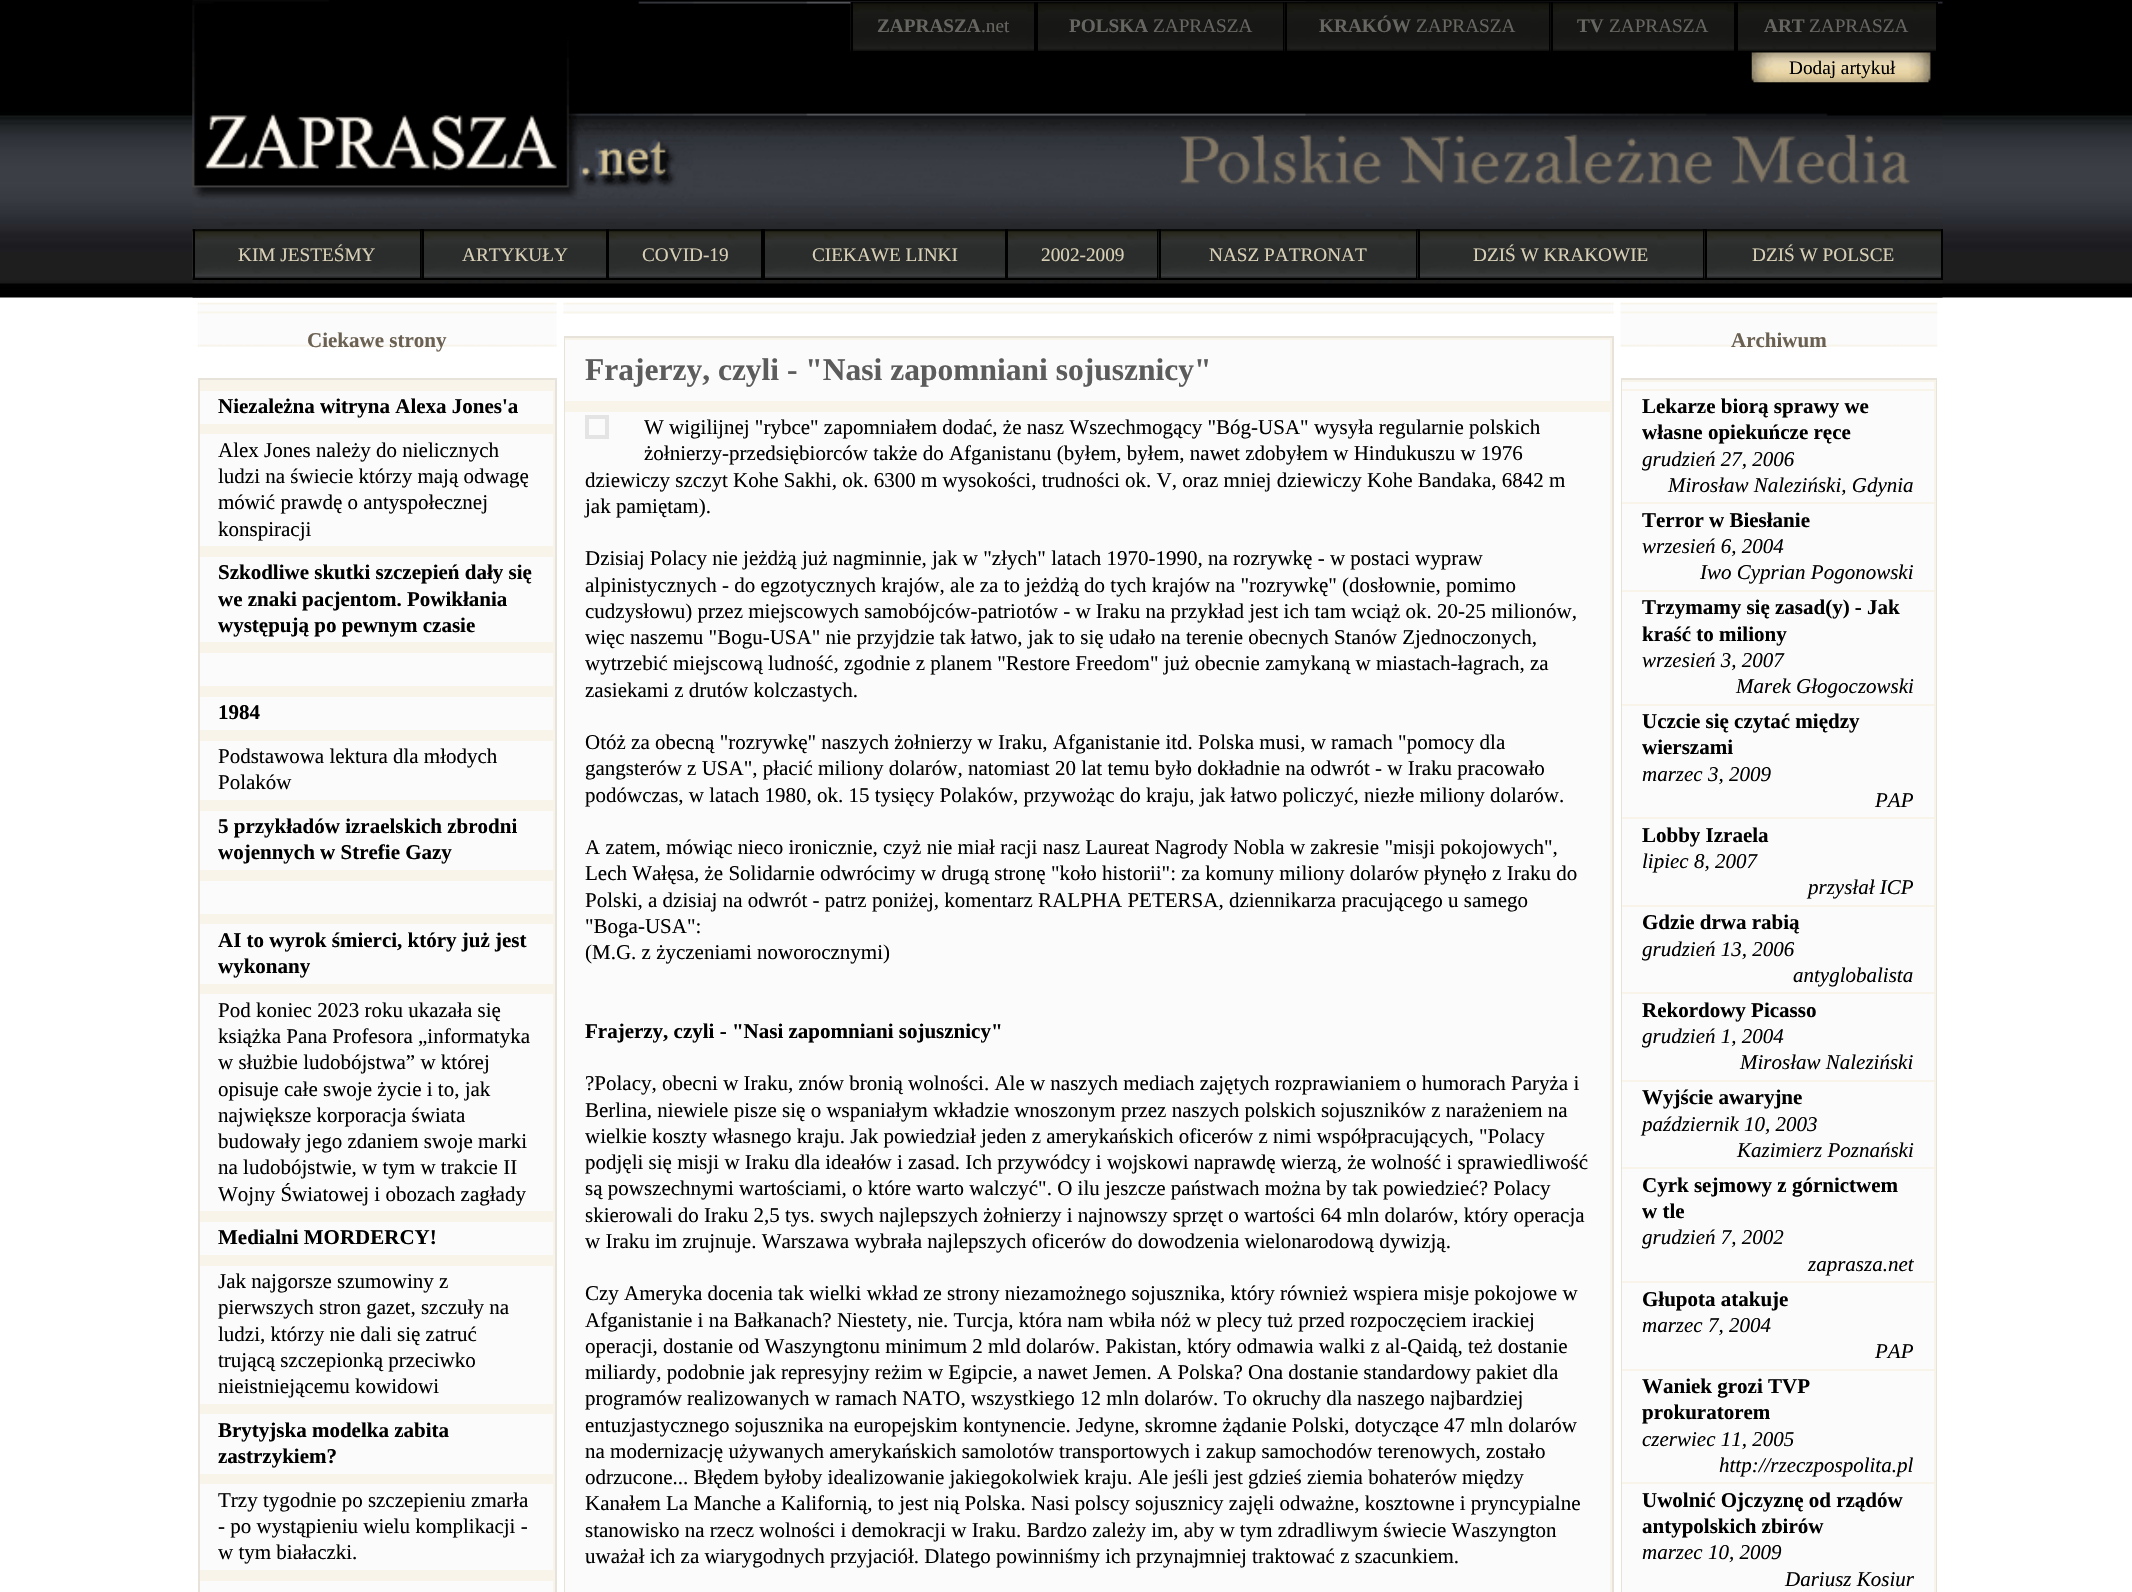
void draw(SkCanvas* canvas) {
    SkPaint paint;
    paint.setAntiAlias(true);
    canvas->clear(0xFFFFFFFF);
    canvas->drawImageRect(SkImages::DeferredFromEncodedData(SkData::MakeFromFileName("img1.png")), SkRect::MakeXYWH(0, 0, 2132, 298), SkSamplingOptions());
    canvas->drawImageRect(SkImages::DeferredFromEncodedData(SkData::MakeFromFileName("img2.png")), SkRect::MakeXYWH(192, 0, 1751, 298), SkSamplingOptions());
    canvas->drawImageRect(SkImages::DeferredFromEncodedData(SkData::MakeFromFileName("img3.png")), SkRect::MakeXYWH(192, 2, 385, 195), SkSamplingOptions());
    canvas->drawImageRect(SkImages::DeferredFromEncodedData(SkData::MakeFromFileName("img4.png")), SkRect::MakeXYWH(850, 1, 186, 51), SkSamplingOptions());
    paint.setColor(0xFF000000);
    canvas->drawRect(SkRect::MakeXYWH(1034, 2, 2, 51), paint);
    canvas->drawRect(SkRect::MakeXYWH(851, 51, 185, 1), paint);
    canvas->drawRect(SkRect::MakeXYWH(851, 2, 2, 51), paint);
    SkFont font1(fontMgr->matchFamilyStyle("Liberation Serif", SkFontStyle::Bold()), 19.25f);
    font1.setSubpixel(true);
    paint.setColor(0xFF676561);
    canvas->drawString("ZAPRASZA", 877, 32, font1, paint);
    SkFont font2(fontMgr->matchFamilyStyle("Liberation Serif", SkFontStyle::Normal()), 19.25f);
    font2.setSubpixel(true);
    canvas->drawString(".net", 981, 32, font2, paint);
    canvas->drawImageRect(SkImages::DeferredFromEncodedData(SkData::MakeFromFileName("img5.png")), SkRect::MakeXYWH(1036, 1, 249, 50), SkSamplingOptions());
    paint.setColor(0xFF000000);
    canvas->drawRect(SkRect::MakeXYWH(1283, 2, 2, 51), paint);
    canvas->drawRect(SkRect::MakeXYWH(1036, 2, 2, 51), paint);
    paint.setColor(0xFF676561);
    canvas->drawString("POLSKA", 1069, 32, font1, paint);
    canvas->drawString("ZAPRASZA", 1153, 32, font2, paint);
    canvas->drawImageRect(SkImages::DeferredFromEncodedData(SkData::MakeFromFileName("img6.png")), SkRect::MakeXYWH(1284, 1, 267, 51), SkSamplingOptions());
    paint.setColor(0xFF000000);
    canvas->drawRect(SkRect::MakeXYWH(1549, 2, 2, 51), paint);
    canvas->drawRect(SkRect::MakeXYWH(1285, 51, 266, 1), paint);
    canvas->drawRect(SkRect::MakeXYWH(1285, 2, 2, 51), paint);
    paint.setColor(0xFF676561);
    canvas->drawString("KRAKÓW", 1319, 32, font1, paint);
    canvas->drawString("ZAPRASZA", 1416, 32, font2, paint);
    canvas->drawImageRect(SkImages::DeferredFromEncodedData(SkData::MakeFromFileName("img7.png")), SkRect::MakeXYWH(1550, 2, 184, 50), SkSamplingOptions());
    paint.setColor(0xFF000000);
    canvas->drawRect(SkRect::MakeXYWH(1734, 2, 4, 2), paint);
    canvas->drawRect(SkRect::MakeXYWH(1551, 51, 185, 1), paint);
    canvas->drawRect(SkRect::MakeXYWH(1551, 2, 2, 51), paint);
    paint.setColor(0xFF676561);
    canvas->drawString("TV", 1577, 32, font1, paint);
    canvas->drawString("ZAPRASZA", 1609, 32, font2, paint);
    canvas->drawImageRect(SkImages::DeferredFromEncodedData(SkData::MakeFromFileName("img8.png")), SkRect::MakeXYWH(1738, 2, 198, 49), SkSamplingOptions());
    paint.setColor(0xFF000000);
    canvas->drawRect(SkRect::MakeXYWH(1936, 2, 2, 2), paint);
    paint.setColor(0xFF676561);
    canvas->drawString("ART", 1764, 32, font1, paint);
    canvas->drawString("ZAPRASZA", 1809, 32, font2, paint);
    canvas->drawImageRect(SkImages::DeferredFromEncodedData(SkData::MakeFromFileName("img9.png")), SkRect::MakeXYWH(1751, 52, 180, 31), SkSamplingOptions());
    paint.setColor(0xFF000000);
    canvas->drawString("Dodaj artykuł", 1789, 74, font2, paint);
    canvas->drawImageRect(SkImages::DeferredFromEncodedData(SkData::MakeFromFileName("img10.png")), SkRect::MakeXYWH(577, 135, 116, 64), SkSamplingOptions());
    canvas->drawImageRect(SkImages::DeferredFromEncodedData(SkData::MakeFromFileName("img11.png")), SkRect::MakeXYWH(1179, 134, 737, 51), SkSamplingOptions());
    canvas->drawImageRect(SkImages::DeferredFromEncodedData(SkData::MakeFromFileName("img12.png")), SkRect::MakeXYWH(192, 229, 228, 51), SkSamplingOptions());
    canvas->drawRect(SkRect::MakeXYWH(420, 229, 2, 51), paint);
    canvas->drawRect(SkRect::MakeXYWH(193, 278, 229, 2), paint);
    canvas->drawRect(SkRect::MakeXYWH(193, 229, 2, 51), paint);
    paint.setColor(0xFFD8D0B6);
    canvas->drawString("KIM JESTEŚMY", 238, 261, font2, paint);
    canvas->drawImageRect(SkImages::DeferredFromEncodedData(SkData::MakeFromFileName("img13.png")), SkRect::MakeXYWH(421, 229, 185, 51), SkSamplingOptions());
    paint.setColor(0xFF000000);
    canvas->drawRect(SkRect::MakeXYWH(606, 229, 1, 51), paint);
    canvas->drawRect(SkRect::MakeXYWH(422, 278, 185, 2), paint);
    canvas->drawRect(SkRect::MakeXYWH(422, 229, 2, 51), paint);
    paint.setColor(0xFFD8D0B6);
    canvas->drawString("ARTYKUŁY", 462, 261, font2, paint);
    canvas->drawImageRect(SkImages::DeferredFromEncodedData(SkData::MakeFromFileName("img14.png")), SkRect::MakeXYWH(609, 229, 152, 49), SkSamplingOptions());
    paint.setColor(0xFF000000);
    canvas->drawRect(SkRect::MakeXYWH(761, 229, 2, 51), paint);
    canvas->drawRect(SkRect::MakeXYWH(607, 278, 156, 2), paint);
    canvas->drawRect(SkRect::MakeXYWH(607, 229, 2, 51), paint);
    paint.setColor(0xFFD8D0B6);
    canvas->drawString("COVID-19", 642, 261, font2, paint);
    canvas->drawImageRect(SkImages::DeferredFromEncodedData(SkData::MakeFromFileName("img15.png")), SkRect::MakeXYWH(765, 229, 240, 49), SkSamplingOptions());
    paint.setColor(0xFF000000);
    canvas->drawRect(SkRect::MakeXYWH(1005, 229, 1, 51), paint);
    canvas->drawRect(SkRect::MakeXYWH(763, 278, 243, 2), paint);
    canvas->drawRect(SkRect::MakeXYWH(763, 229, 2, 51), paint);
    paint.setColor(0xFFD8D0B6);
    canvas->drawString("CIEKAWE LINKI", 812, 261, font2, paint);
    canvas->drawImageRect(SkImages::DeferredFromEncodedData(SkData::MakeFromFileName("img16.png")), SkRect::MakeXYWH(1008, 229, 149, 49), SkSamplingOptions());
    paint.setColor(0xFF000000);
    canvas->drawRect(SkRect::MakeXYWH(1157, 229, 2, 51), paint);
    canvas->drawRect(SkRect::MakeXYWH(1006, 278, 153, 2), paint);
    canvas->drawRect(SkRect::MakeXYWH(1006, 229, 2, 51), paint);
    paint.setColor(0xFFD8D0B6);
    canvas->drawString("2002-2009", 1041, 261, font2, paint);
    canvas->drawImageRect(SkImages::DeferredFromEncodedData(SkData::MakeFromFileName("img17.png")), SkRect::MakeXYWH(1158, 229, 258, 51), SkSamplingOptions());
    paint.setColor(0xFF000000);
    canvas->drawRect(SkRect::MakeXYWH(1416, 229, 2, 51), paint);
    canvas->drawRect(SkRect::MakeXYWH(1159, 278, 259, 2), paint);
    canvas->drawRect(SkRect::MakeXYWH(1159, 229, 2, 51), paint);
    paint.setColor(0xFFD8D0B6);
    canvas->drawString("NASZ PATRONAT", 1209, 261, font2, paint);
    canvas->drawImageRect(SkImages::DeferredFromEncodedData(SkData::MakeFromFileName("img18.png")), SkRect::MakeXYWH(1417, 229, 286, 51), SkSamplingOptions());
    paint.setColor(0xFF000000);
    canvas->drawRect(SkRect::MakeXYWH(1703, 229, 2, 51), paint);
    canvas->drawRect(SkRect::MakeXYWH(1418, 278, 287, 2), paint);
    canvas->drawRect(SkRect::MakeXYWH(1418, 229, 2, 51), paint);
    paint.setColor(0xFFD8D0B6);
    canvas->drawString("DZIŚ W KRAKOWIE", 1473, 261, font2, paint);
    canvas->drawImageRect(SkImages::DeferredFromEncodedData(SkData::MakeFromFileName("img19.png")), SkRect::MakeXYWH(1704, 229, 237, 51), SkSamplingOptions());
    paint.setColor(0xFF000000);
    canvas->drawRect(SkRect::MakeXYWH(1941, 229, 2, 51), paint);
    canvas->drawRect(SkRect::MakeXYWH(1705, 278, 238, 2), paint);
    canvas->drawRect(SkRect::MakeXYWH(1705, 229, 2, 51), paint);
    paint.setColor(0xFFD8D0B6);
    canvas->drawString("DZIŚ W POLSCE", 1752, 261, font2, paint);
    canvas->drawImageRect(SkImages::DeferredFromEncodedData(SkData::MakeFromFileName("img20.png")), SkRect::MakeXYWH(197, 302, 3, 45), SkSamplingOptions());
    canvas->drawImageRect(SkImages::DeferredFromEncodedData(SkData::MakeFromFileName("img21.png")), SkRect::MakeXYWH(199, 302, 356, 45), SkSamplingOptions());
    SkFont font3(fontMgr->matchFamilyStyle("Liberation Serif", SkFontStyle::Bold()), 21);
    font3.setSubpixel(true);
    paint.setColor(0xFF6B6153);
    canvas->drawString("Ciekawe strony", 307, 347, font3, paint);
    canvas->drawImageRect(SkImages::DeferredFromEncodedData(SkData::MakeFromFileName("img22.png")), SkRect::MakeXYWH(555, 302, 2, 45), SkSamplingOptions());
    paint.setStyle(SkPaint::kStroke_Style);
    paint.setStrokeWidth(2);
    paint.setColor(0xFFE7E3DA);
    canvas->drawRect(SkRect::MakeXYWH(199, 379, 357, 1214), paint);
    paint.setStyle(SkPaint::kFill_Style);
    paint.setColor(0xFFF8F4E9);
    canvas->drawRect(SkRect::MakeXYWH(200, 380, 355, 11), paint);
    paint.setColor(0xFFFBFBFB);
    canvas->drawRect(SkRect::MakeXYWH(200, 391, 353, 33), paint);
    paint.setColor(0xFFF8F4E9);
    canvas->drawRect(SkRect::MakeXYWH(553, 389, 2, 35), paint);
    paint.setColor(0xFF000000);
    canvas->drawString("Niezależna witryna Alexa Jones'a", 218, 413, font3, paint);
    paint.setColor(0xFFF8F4E9);
    canvas->drawRect(SkRect::MakeXYWH(200, 424, 355, 10), paint);
    paint.setColor(0xFFFBFBFB);
    canvas->drawRect(SkRect::MakeXYWH(200, 434, 353, 112), paint);
    paint.setColor(0xFFF8F4E9);
    canvas->drawRect(SkRect::MakeXYWH(553, 432, 2, 114), paint);
    SkFont font4(fontMgr->matchFamilyStyle("Liberation Serif", SkFontStyle::Normal()), 21);
    font4.setSubpixel(true);
    paint.setColor(0xFF000000);
    canvas->drawString("Alex Jones należy do nielicznych", 218, 457, font4, paint);
    canvas->drawString("ludzi na świecie którzy mają odwagę", 218, 483, font4, paint);
    canvas->drawString("mówić prawdę o antyspołecznej", 218, 509, font4, paint);
    canvas->drawString("konspiracji", 218, 536, font4, paint);
    paint.setColor(0xFFF8F4E9);
    canvas->drawRect(SkRect::MakeXYWH(200, 546, 355, 11), paint);
    paint.setColor(0xFFFBFBFB);
    canvas->drawRect(SkRect::MakeXYWH(200, 557, 353, 85), paint);
    paint.setColor(0xFFF8F4E9);
    canvas->drawRect(SkRect::MakeXYWH(553, 555, 2, 87), paint);
    paint.setColor(0xFF000000);
    canvas->drawString("Szkodliwe skutki szczepień dały się", 218, 579, font3, paint);
    canvas->drawString("we znaki pacjentom. Powikłania", 218, 606, font3, paint);
    canvas->drawString("występują po pewnym czasie", 218, 632, font3, paint);
    paint.setColor(0xFFF8F4E9);
    canvas->drawRect(SkRect::MakeXYWH(200, 642, 355, 11), paint);
    paint.setColor(0xFFFBFBFB);
    canvas->drawRect(SkRect::MakeXYWH(200, 653, 353, 33), paint);
    paint.setColor(0xFFF8F4E9);
    canvas->drawRect(SkRect::MakeXYWH(553, 651, 2, 35), paint);
    canvas->drawRect(SkRect::MakeXYWH(200, 686, 355, 11), paint);
    paint.setColor(0xFFFBFBFB);
    canvas->drawRect(SkRect::MakeXYWH(200, 697, 353, 33), paint);
    paint.setColor(0xFFF8F4E9);
    canvas->drawRect(SkRect::MakeXYWH(553, 695, 2, 35), paint);
    paint.setColor(0xFF000000);
    canvas->drawString("1984", 218, 719, font3, paint);
    paint.setColor(0xFFF8F4E9);
    canvas->drawRect(SkRect::MakeXYWH(200, 730, 355, 11), paint);
    paint.setColor(0xFFFBFBFB);
    canvas->drawRect(SkRect::MakeXYWH(200, 741, 353, 59), paint);
    paint.setColor(0xFFF8F4E9);
    canvas->drawRect(SkRect::MakeXYWH(553, 739, 2, 61), paint);
    paint.setColor(0xFF000000);
    canvas->drawString("Podstawowa lektura dla młodych", 218, 763, font4, paint);
    canvas->drawString("Polaków", 218, 789, font4, paint);
    paint.setColor(0xFFF8F4E9);
    canvas->drawRect(SkRect::MakeXYWH(200, 800, 355, 11), paint);
    paint.setColor(0xFFFBFBFB);
    canvas->drawRect(SkRect::MakeXYWH(200, 811, 353, 59), paint);
    paint.setColor(0xFFF8F4E9);
    canvas->drawRect(SkRect::MakeXYWH(553, 809, 2, 61), paint);
    paint.setColor(0xFF000000);
    canvas->drawString("5 przykładów izraelskich zbrodni", 218, 833, font3, paint);
    canvas->drawString("wojennych w Strefie Gazy", 218, 859, font3, paint);
    paint.setColor(0xFFF8F4E9);
    canvas->drawRect(SkRect::MakeXYWH(200, 870, 355, 11), paint);
    paint.setColor(0xFFFBFBFB);
    canvas->drawRect(SkRect::MakeXYWH(200, 881, 353, 33), paint);
    paint.setColor(0xFFF8F4E9);
    canvas->drawRect(SkRect::MakeXYWH(553, 879, 2, 35), paint);
    canvas->drawRect(SkRect::MakeXYWH(200, 914, 355, 10), paint);
    paint.setColor(0xFFFBFBFB);
    canvas->drawRect(SkRect::MakeXYWH(200, 924, 353, 60), paint);
    paint.setColor(0xFFF8F4E9);
    canvas->drawRect(SkRect::MakeXYWH(553, 922, 2, 62), paint);
    paint.setColor(0xFF000000);
    canvas->drawString("AI to wyrok śmierci, który już jest", 218, 947, font3, paint);
    canvas->drawString("wykonany", 218, 973, font3, paint);
    paint.setColor(0xFFF8F4E9);
    canvas->drawRect(SkRect::MakeXYWH(200, 984, 355, 10), paint);
    paint.setColor(0xFFFBFBFB);
    canvas->drawRect(SkRect::MakeXYWH(200, 994, 353, 217), paint);
    paint.setColor(0xFFF8F4E9);
    canvas->drawRect(SkRect::MakeXYWH(553, 992, 2, 219), paint);
    paint.setColor(0xFF000000);
    canvas->drawString("Pod koniec 2023 roku ukazała się", 218, 1017, font4, paint);
    canvas->drawString("książka Pana Profesora „informatyka", 218, 1043, font4, paint);
    canvas->drawString("w służbie ludobójstwa” w której", 218, 1069, font4, paint);
    canvas->drawString("opisuje całe swoje życie i to, jak", 218, 1096, font4, paint);
    canvas->drawString("największe korporacja świata", 218, 1122, font4, paint);
    canvas->drawString("budowały jego zdaniem swoje marki", 218, 1148, font4, paint);
    canvas->drawString("na ludobójstwie, w tym w trakcie II", 218, 1174, font4, paint);
    canvas->drawString("Wojny Światowej i obozach zagłady", 218, 1201, font4, paint);
    paint.setColor(0xFFF8F4E9);
    canvas->drawRect(SkRect::MakeXYWH(200, 1211, 355, 11), paint);
    paint.setColor(0xFFFBFBFB);
    canvas->drawRect(SkRect::MakeXYWH(200, 1222, 353, 33), paint);
    paint.setColor(0xFFF8F4E9);
    canvas->drawRect(SkRect::MakeXYWH(553, 1220, 2, 35), paint);
    paint.setColor(0xFF000000);
    canvas->drawString("Medialni MORDERCY!", 218, 1244, font3, paint);
    paint.setColor(0xFFF8F4E9);
    canvas->drawRect(SkRect::MakeXYWH(200, 1255, 355, 11), paint);
    paint.setColor(0xFFFBFBFB);
    canvas->drawRect(SkRect::MakeXYWH(200, 1266, 353, 138), paint);
    paint.setColor(0xFFF8F4E9);
    canvas->drawRect(SkRect::MakeXYWH(553, 1264, 2, 140), paint);
    paint.setColor(0xFF000000);
    canvas->drawString("Jak najgorsze szumowiny z", 218, 1288, font4, paint);
    canvas->drawString("pierwszych stron gazet, szczuły na", 218, 1314, font4, paint);
    canvas->drawString("ludzi, którzy nie dali się zatruć", 218, 1341, font4, paint);
    canvas->drawString("trującą szczepionką przeciwko", 218, 1367, font4, paint);
    canvas->drawString("nieistniejącemu kowidowi", 218, 1393, font4, paint);
    paint.setColor(0xFFF8F4E9);
    canvas->drawRect(SkRect::MakeXYWH(200, 1404, 355, 10), paint);
    paint.setColor(0xFFFBFBFB);
    canvas->drawRect(SkRect::MakeXYWH(200, 1414, 353, 60), paint);
    paint.setColor(0xFFF8F4E9);
    canvas->drawRect(SkRect::MakeXYWH(553, 1412, 2, 62), paint);
    paint.setColor(0xFF000000);
    canvas->drawString("Brytyjska modelka zabita", 218, 1437, font3, paint);
    canvas->drawString("zastrzykiem?", 218, 1463, font3, paint);
    paint.setColor(0xFFF8F4E9);
    canvas->drawRect(SkRect::MakeXYWH(200, 1474, 355, 10), paint);
    paint.setColor(0xFFFBFBFB);
    canvas->drawRect(SkRect::MakeXYWH(200, 1484, 353, 86), paint);
    paint.setColor(0xFFF8F4E9);
    canvas->drawRect(SkRect::MakeXYWH(553, 1482, 2, 88), paint);
    paint.setColor(0xFF000000);
    canvas->drawString("Trzy tygodnie po szczepieniu zmarła", 218, 1507, font4, paint);
    canvas->drawString("- po wystąpieniu wielu komplikacji -", 218, 1533, font4, paint);
    canvas->drawString("w tym białaczki.", 218, 1559, font4, paint);
    paint.setColor(0xFFF8F4E9);
    canvas->drawRect(SkRect::MakeXYWH(200, 1570, 355, 11), paint);
    paint.setColor(0xFFFBFBFB);
    canvas->drawRect(SkRect::MakeXYWH(200, 1581, 353, 11), paint);
    paint.setColor(0xFFF8F4E9);
    canvas->drawRect(SkRect::MakeXYWH(553, 1579, 2, 13), paint);
    canvas->drawImageRect(SkImages::DeferredFromEncodedData(SkData::MakeFromFileName("img23.png")), SkRect::MakeXYWH(563, 302, 3, 12), SkSamplingOptions());
    canvas->drawImageRect(SkImages::DeferredFromEncodedData(SkData::MakeFromFileName("img24.png")), SkRect::MakeXYWH(565, 302, 1047, 12), SkSamplingOptions());
    canvas->drawImageRect(SkImages::DeferredFromEncodedData(SkData::MakeFromFileName("img25.png")), SkRect::MakeXYWH(1612, 302, 2, 12), SkSamplingOptions());
    paint.setStyle(SkPaint::kStroke_Style);
    paint.setColor(0xFFE7E3DA);
    canvas->drawRect(SkRect::MakeXYWH(565, 337, 1048, 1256), paint);
    paint.setStyle(SkPaint::kFill_Style);
    paint.setColor(0xFFFBFBFB);
    canvas->drawRect(SkRect::MakeXYWH(565, 340, 1045, 61), paint);
    paint.setColor(0xFFF8F4E9);
    canvas->drawRect(SkRect::MakeXYWH(565, 338, 1047, 2), paint);
    canvas->drawRect(SkRect::MakeXYWH(1610, 338, 2, 63), paint);
    SkFont font5(fontMgr->matchFamilyStyle("Liberation Serif", SkFontStyle::Bold()), 31.5f);
    font5.setSubpixel(true);
    paint.setColor(0xFF5C5C5C);
    canvas->drawString("Frajerzy, czyli - \"Nasi zapomniani sojusznicy\"", 585, 380, font5, paint);
    paint.setColor(0xFFF8F4E9);
    canvas->drawRect(SkRect::MakeXYWH(565, 401, 1047, 11), paint);
    paint.setColor(0xFFFBFBFB);
    canvas->drawRect(SkRect::MakeXYWH(565, 412, 1045, 1180), paint);
    paint.setColor(0xFFF8F4E9);
    canvas->drawRect(SkRect::MakeXYWH(1610, 410, 2, 1182), paint);
    paint.setStyle(SkPaint::kStroke_Style);
    paint.setStrokeWidth(4);
    paint.setColor(0xFFE4E4E4);
    canvas->drawRect(SkRect::MakeXYWH(587, 417, 20, 20), paint);
    paint.setStyle(SkPaint::kFill_Style);
    paint.setColor(0xFF000000);
    canvas->drawString("W wigilijnej \"rybce\" zapomniałem dodać, że nasz Wszechmogący \"Bóg-USA\" wysyła regularnie polskich", 644, 434, font4, paint);
    canvas->drawString("żołnierzy-przedsiębiorców także do Afganistanu (byłem, byłem, nawet zdobyłem w Hindukuszu w 1976", 644, 460, font4, paint);
    canvas->drawString("dziewiczy szczyt Kohe Sakhi, ok. 6300 m wysokości, trudności ok. V, oraz mniej dziewiczy Kohe Bandaka, 6842 m", 585, 487, font4, paint);
    canvas->drawString("jak pamiętam).", 585, 513, font4, paint);
    canvas->drawString("Dzisiaj Polacy nie jeżdżą już nagminnie, jak w \"złych\" latach 1970-1990, na rozrywkę - w postaci wypraw", 585, 565, font4, paint);
    canvas->drawString("alpinistycznych - do egzotycznych krajów, ale za to jeżdżą do tych krajów na \"rozrywkę\" (dosłownie, pomimo", 585, 592, font4, paint);
    canvas->drawString("cudzysłowu) przez miejscowych samobójców-patriotów - w Iraku na przykład jest ich tam wciąż ok. 20-25 milionów,", 585, 618, font4, paint);
    canvas->drawString("więc naszemu \"Bogu-USA\" nie przyjdzie tak łatwo, jak to się udało na terenie obecnych Stanów Zjednoczonych,", 585, 644, font4, paint);
    canvas->drawString("wytrzebić miejscową ludność, zgodnie z planem \"Restore Freedom\" już obecnie zamykaną w miastach-łagrach, za", 585, 670, font4, paint);
    canvas->drawString("zasiekami z drutów kolczastych.", 585, 697, font4, paint);
    canvas->drawString("Otóż za obecną \"rozrywkę\" naszych żołnierzy w Iraku, Afganistanie itd. Polska musi, w ramach \"pomocy dla", 585, 749, font4, paint);
    canvas->drawString("gangsterów z USA\", płacić miliony dolarów, natomiast 20 lat temu było dokładnie na odwrót - w Iraku pracowało", 585, 775, font4, paint);
    canvas->drawString("podówczas, w latach 1980, ok. 15 tysięcy Polaków, przywożąc do kraju, jak łatwo policzyć, niezłe miliony dolarów.", 585, 802, font4, paint);
    canvas->drawString("A zatem, mówiąc nieco ironicznie, czyż nie miał racji nasz Laureat Nagrody Nobla w zakresie \"misji pokojowych\",", 585, 854, font4, paint);
    canvas->drawString("Lech Wałęsa, że Solidarnie odwrócimy w drugą stronę \"koło historii\": za komuny miliony dolarów płynęło z Iraku do", 585, 880, font4, paint);
    canvas->drawString("Polski, a dzisiaj na odwrót - patrz poniżej, komentarz RALPHA PETERSA, dziennikarza pracującego u samego", 585, 907, font4, paint);
    canvas->drawString("\"Boga-USA\":", 585, 933, font4, paint);
    canvas->drawString("(M.G. z życzeniami noworocznymi)", 585, 959, font4, paint);
    canvas->drawString("Frajerzy, czyli - \"Nasi zapomniani sojusznicy\"", 585, 1038, font3, paint);
    canvas->drawString("?Polacy, obecni w Iraku, znów bronią wolności. Ale w naszych mediach zajętych rozprawianiem o humorach Paryża i", 585, 1090, font4, paint);
    canvas->drawString("Berlina, niewiele pisze się o wspaniałym wkładzie wnoszonym przez naszych polskich sojuszników z narażeniem na", 585, 1117, font4, paint);
    canvas->drawString("wielkie koszty własnego kraju. Jak powiedział jeden z amerykańskich oficerów z nimi współpracujących, \"Polacy", 585, 1143, font4, paint);
    canvas->drawString("podjęli się misji w Iraku dla ideałów i zasad. Ich przywódcy i wojskowi naprawdę wierzą, że wolność i sprawiedliwość", 585, 1169, font4, paint);
    canvas->drawString("są powszechnymi wartościami, o które warto walczyć\". O ilu jeszcze państwach można by tak powiedzieć? Polacy", 585, 1195, font4, paint);
    canvas->drawString("skierowali do Iraku 2,5 tys. swych najlepszych żołnierzy i najnowszy sprzęt o wartości 64 mln dolarów, który operacja", 585, 1222, font4, paint);
    canvas->drawString("w Iraku im zrujnuje. Warszawa wybrała najlepszych oficerów do dowodzenia wielonarodową dywizją.", 585, 1248, font4, paint);
    canvas->drawString("Czy Ameryka docenia tak wielki wkład ze strony niezamożnego sojusznika, który również wspiera misje pokojowe w", 585, 1300, font4, paint);
    canvas->drawString("Afganistanie i na Bałkanach? Niestety, nie. Turcja, która nam wbiła nóż w plecy tuż przed rozpoczęciem irackiej", 585, 1327, font4, paint);
    canvas->drawString("operacji, dostanie od Waszyngtonu minimum 2 mld dolarów. Pakistan, który odmawia walki z al-Qaidą, też dostanie", 585, 1353, font4, paint);
    canvas->drawString("miliardy, podobnie jak represyjny reżim w Egipcie, a nawet Jemen. A Polska? Ona dostanie standardowy pakiet dla", 585, 1379, font4, paint);
    canvas->drawString("programów realizowanych w ramach NATO, wszystkiego 12 mln dolarów. To okruchy dla naszego najbardziej", 585, 1405, font4, paint);
    canvas->drawString("entuzjastycznego sojusznika na europejskim kontynencie. Jedyne, skromne żądanie Polski, dotyczące 47 mln dolarów", 585, 1432, font4, paint);
    canvas->drawString("na modernizację używanych amerykańskich samolotów transportowych i zakup samochodów terenowych, zostało", 585, 1458, font4, paint);
    canvas->drawString("odrzucone... Błędem byłoby idealizowanie jakiegokolwiek kraju. Ale jeśli jest gdzieś ziemia bohaterów między", 585, 1484, font4, paint);
    canvas->drawString("Kanałem La Manche a Kalifornią, to jest nią Polska. Nasi polscy sojusznicy zajęli odważne, kosztowne i pryncypialne", 585, 1510, font4, paint);
    canvas->drawString("stanowisko na rzecz wolności i demokracji w Iraku. Bardzo zależy im, aby w tym zdradliwym świecie Waszyngton", 585, 1537, font4, paint);
    canvas->drawString("uważał ich za wiarygodnych przyjaciół. Dlatego powinniśmy ich przynajmniej traktować z szacunkiem.", 585, 1563, font4, paint);
    canvas->drawImageRect(SkImages::DeferredFromEncodedData(SkData::MakeFromFileName("img26.png")), SkRect::MakeXYWH(1620, 302, 318, 45), SkSamplingOptions());
    paint.setColor(0xFF6B6153);
    canvas->drawString("Archiwum", 1731, 347, font3, paint);
    paint.setStyle(SkPaint::kStroke_Style);
    paint.setStrokeWidth(2);
    paint.setColor(0xFFE7E3DA);
    canvas->drawRect(SkRect::MakeXYWH(1622, 379, 314, 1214), paint);
    paint.setStyle(SkPaint::kFill_Style);
    paint.setColor(0xFFFBFBFB);
    canvas->drawRect(SkRect::MakeXYWH(1622, 382, 312, 7), paint);
    paint.setColor(0xFFF8F4E9);
    canvas->drawRect(SkRect::MakeXYWH(1622, 380, 314, 2), paint);
    canvas->drawRect(SkRect::MakeXYWH(1934, 380, 2, 9), paint);
    paint.setColor(0xFFFBFBFB);
    canvas->drawRect(SkRect::MakeXYWH(1622, 391, 312, 111), paint);
    paint.setColor(0xFFF8F4E9);
    canvas->drawRect(SkRect::MakeXYWH(1622, 389, 314, 2), paint);
    canvas->drawRect(SkRect::MakeXYWH(1934, 389, 2, 113), paint);
    paint.setColor(0xFF000000);
    canvas->drawString("Lekarze biorą sprawy we", 1642, 413, font3, paint);
    canvas->drawString("własne opiekuńcze ręce", 1642, 439, font3, paint);
    SkFont font6(fontMgr->matchFamilyStyle("Liberation Serif", SkFontStyle::Italic()), 21);
    font6.setSubpixel(true);
    canvas->drawString("grudzień 27, 2006", 1642, 466, font6, paint);
    canvas->drawString("Mirosław Naleziński, Gdynia", 1668, 492, font6, paint);
    paint.setColor(0xFFFBFBFB);
    canvas->drawRect(SkRect::MakeXYWH(1622, 504, 312, 86), paint);
    paint.setColor(0xFFF8F4E9);
    canvas->drawRect(SkRect::MakeXYWH(1622, 502, 314, 2), paint);
    canvas->drawRect(SkRect::MakeXYWH(1934, 502, 2, 88), paint);
    paint.setColor(0xFF000000);
    canvas->drawString("Terror w Biesłanie", 1642, 527, font3, paint);
    canvas->drawString("wrzesień 6, 2004", 1642, 553, font6, paint);
    canvas->drawString("Iwo Cyprian Pogonowski", 1700, 579, font6, paint);
    paint.setColor(0xFFFBFBFB);
    canvas->drawRect(SkRect::MakeXYWH(1622, 592, 312, 112), paint);
    paint.setColor(0xFFF8F4E9);
    canvas->drawRect(SkRect::MakeXYWH(1622, 590, 314, 2), paint);
    canvas->drawRect(SkRect::MakeXYWH(1934, 590, 2, 114), paint);
    paint.setColor(0xFF000000);
    canvas->drawString("Trzymamy się zasad(y) - Jak", 1642, 614, font3, paint);
    canvas->drawString("kraść to miliony", 1642, 641, font3, paint);
    canvas->drawString("wrzesień 3, 2007", 1642, 667, font6, paint);
    canvas->drawString("Marek Głogoczowski", 1736, 693, font6, paint);
    paint.setColor(0xFFFBFBFB);
    canvas->drawRect(SkRect::MakeXYWH(1622, 706, 312, 111), paint);
    paint.setColor(0xFFF8F4E9);
    canvas->drawRect(SkRect::MakeXYWH(1622, 704, 314, 2), paint);
    canvas->drawRect(SkRect::MakeXYWH(1934, 704, 2, 113), paint);
    paint.setColor(0xFF000000);
    canvas->drawString("Uczcie się czytać między", 1642, 728, font3, paint);
    canvas->drawString("wierszami", 1642, 754, font3, paint);
    canvas->drawString("marzec 3, 2009", 1642, 781, font6, paint);
    canvas->drawString("PAP", 1875, 807, font6, paint);
    paint.setColor(0xFFFBFBFB);
    canvas->drawRect(SkRect::MakeXYWH(1622, 819, 312, 86), paint);
    paint.setColor(0xFFF8F4E9);
    canvas->drawRect(SkRect::MakeXYWH(1622, 817, 314, 2), paint);
    canvas->drawRect(SkRect::MakeXYWH(1934, 817, 2, 88), paint);
    paint.setColor(0xFF000000);
    canvas->drawString("Lobby Izraela", 1642, 842, font3, paint);
    canvas->drawString("lipiec 8, 2007", 1642, 868, font6, paint);
    canvas->drawString("przysłał ICP", 1808, 894, font6, paint);
    paint.setColor(0xFFFBFBFB);
    canvas->drawRect(SkRect::MakeXYWH(1622, 907, 312, 85), paint);
    paint.setColor(0xFFF8F4E9);
    canvas->drawRect(SkRect::MakeXYWH(1622, 905, 314, 2), paint);
    canvas->drawRect(SkRect::MakeXYWH(1934, 905, 2, 87), paint);
    paint.setColor(0xFF000000);
    canvas->drawString("Gdzie drwa rabią", 1642, 929, font3, paint);
    canvas->drawString("grudzień 13, 2006", 1642, 956, font6, paint);
    canvas->drawString("antyglobalista", 1793, 982, font6, paint);
    paint.setColor(0xFFFBFBFB);
    canvas->drawRect(SkRect::MakeXYWH(1622, 994, 312, 86), paint);
    paint.setColor(0xFFF8F4E9);
    canvas->drawRect(SkRect::MakeXYWH(1622, 992, 314, 2), paint);
    canvas->drawRect(SkRect::MakeXYWH(1934, 992, 2, 88), paint);
    paint.setColor(0xFF000000);
    canvas->drawString("Rekordowy Picasso", 1642, 1017, font3, paint);
    canvas->drawString("grudzień 1, 2004", 1642, 1043, font6, paint);
    canvas->drawString("Mirosław Naleziński", 1740, 1069, font6, paint);
    paint.setColor(0xFFFBFBFB);
    canvas->drawRect(SkRect::MakeXYWH(1622, 1082, 312, 85), paint);
    paint.setColor(0xFFF8F4E9);
    canvas->drawRect(SkRect::MakeXYWH(1622, 1080, 314, 2), paint);
    canvas->drawRect(SkRect::MakeXYWH(1934, 1080, 2, 87), paint);
    paint.setColor(0xFF000000);
    canvas->drawString("Wyjście awaryjne", 1642, 1104, font3, paint);
    canvas->drawString("październik 10, 2003", 1642, 1131, font6, paint);
    canvas->drawString("Kazimierz Poznański", 1737, 1157, font6, paint);
    paint.setColor(0xFFFBFBFB);
    canvas->drawRect(SkRect::MakeXYWH(1622, 1169, 312, 112), paint);
    paint.setColor(0xFFF8F4E9);
    canvas->drawRect(SkRect::MakeXYWH(1622, 1167, 314, 2), paint);
    canvas->drawRect(SkRect::MakeXYWH(1934, 1167, 2, 114), paint);
    paint.setColor(0xFF000000);
    canvas->drawString("Cyrk sejmowy z górnictwem", 1642, 1192, font3, paint);
    canvas->drawString("w tle", 1642, 1218, font3, paint);
    canvas->drawString("grudzień 7, 2002", 1642, 1244, font6, paint);
    canvas->drawString("zaprasza.net", 1808, 1271, font6, paint);
    paint.setColor(0xFFFBFBFB);
    canvas->drawRect(SkRect::MakeXYWH(1622, 1283, 312, 86), paint);
    paint.setColor(0xFFF8F4E9);
    canvas->drawRect(SkRect::MakeXYWH(1622, 1281, 314, 2), paint);
    canvas->drawRect(SkRect::MakeXYWH(1934, 1281, 2, 88), paint);
    paint.setColor(0xFF000000);
    canvas->drawString("Głupota atakuje", 1642, 1306, font3, paint);
    canvas->drawString("marzec 7, 2004", 1642, 1332, font6, paint);
    canvas->drawString("PAP", 1875, 1358, font6, paint);
    paint.setColor(0xFFFBFBFB);
    canvas->drawRect(SkRect::MakeXYWH(1622, 1371, 312, 111), paint);
    paint.setColor(0xFFF8F4E9);
    canvas->drawRect(SkRect::MakeXYWH(1622, 1369, 314, 2), paint);
    canvas->drawRect(SkRect::MakeXYWH(1934, 1369, 2, 113), paint);
    paint.setColor(0xFF000000);
    canvas->drawString("Waniek grozi TVP", 1642, 1393, font3, paint);
    canvas->drawString("prokuratorem", 1642, 1419, font3, paint);
    canvas->drawString("czerwiec 11, 2005", 1642, 1446, font6, paint);
    canvas->drawString("http://rzeczpospolita.pl", 1719, 1472, font6, paint);
    paint.setColor(0xFFFBFBFB);
    canvas->drawRect(SkRect::MakeXYWH(1622, 1484, 312, 108), paint);
    paint.setColor(0xFFF8F4E9);
    canvas->drawRect(SkRect::MakeXYWH(1622, 1482, 314, 2), paint);
    canvas->drawRect(SkRect::MakeXYWH(1934, 1482, 2, 110), paint);
    paint.setColor(0xFF000000);
    canvas->drawString("Uwolnić Ojczyznę od rządów", 1642, 1507, font3, paint);
    canvas->drawString("antypolskich zbirów", 1642, 1533, font3, paint);
    canvas->drawString("marzec 10, 2009", 1642, 1559, font6, paint);
    canvas->drawString("Dariusz Kosiur", 1785, 1586, font6, paint);
}
